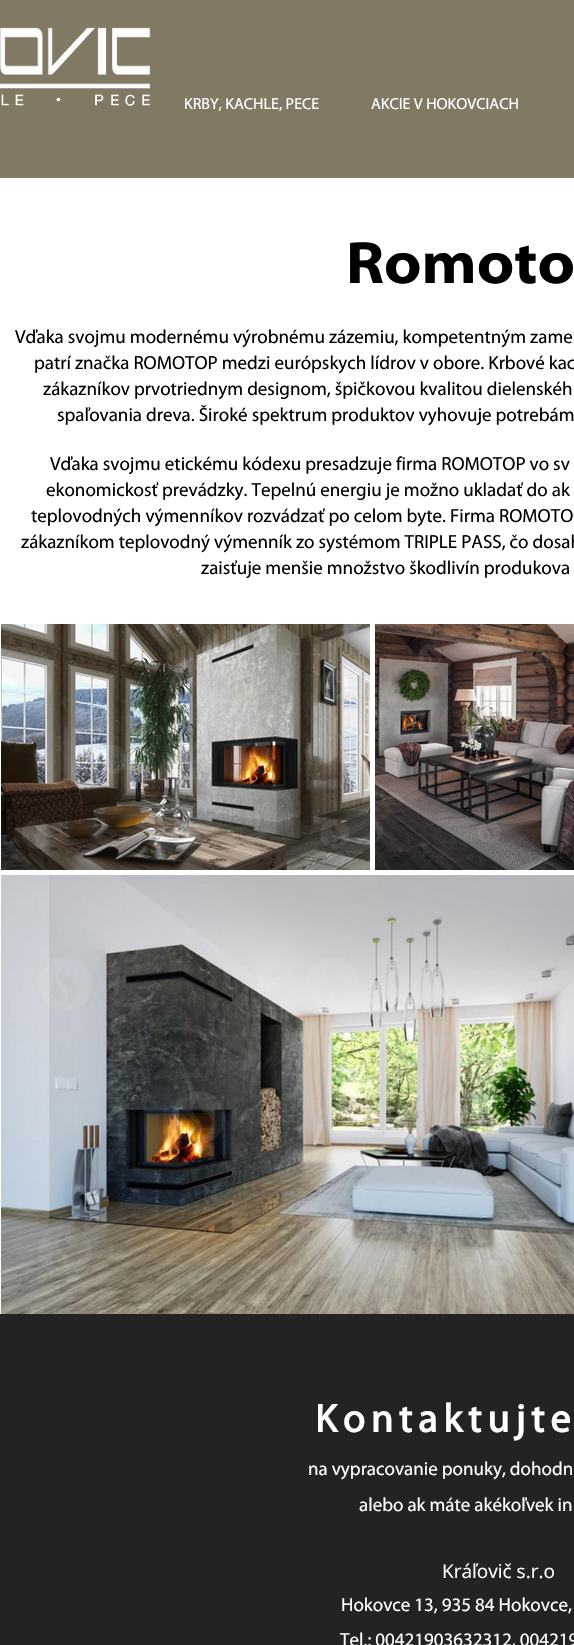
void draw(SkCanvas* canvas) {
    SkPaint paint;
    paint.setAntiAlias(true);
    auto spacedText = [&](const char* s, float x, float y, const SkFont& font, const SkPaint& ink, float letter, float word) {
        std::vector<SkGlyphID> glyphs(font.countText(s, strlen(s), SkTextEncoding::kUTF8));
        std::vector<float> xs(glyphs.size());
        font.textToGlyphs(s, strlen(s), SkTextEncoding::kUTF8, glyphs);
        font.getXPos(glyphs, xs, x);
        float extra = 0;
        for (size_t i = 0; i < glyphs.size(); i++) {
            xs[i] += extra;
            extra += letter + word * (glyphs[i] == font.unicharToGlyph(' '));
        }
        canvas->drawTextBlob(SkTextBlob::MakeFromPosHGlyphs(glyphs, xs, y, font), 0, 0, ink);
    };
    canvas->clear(0xFFFFFFFF);
    paint.setColor(0xFF827964);
    canvas->drawRect(SkRect::MakeXYWH(0, 0, 574, 178), paint);
    canvas->drawImageRect(SkImages::DeferredFromEncodedData(SkData::MakeFromFileName("img1.png")), SkRect::MakeXYWH(0, 27, 151, 80), SkSamplingOptions());
    SkFont font1(fontMgr->matchFamilyStyle("Myriad", SkFontStyle::Normal()), 16);
    font1.setSubpixel(true);
    paint.setColor(0xFFFFFFFF);
    canvas->drawString("KRBY, KACHLE, PECE", 184, 109, font1, paint);
    canvas->drawString("AKCIE V HOKOVCIACH", 371, 109, font1, paint);
    SkFont font2(fontMgr->matchFamilyStyle("Myriad", SkFontStyle::Bold()), 60);
    font2.setSubpixel(true);
    paint.setColor(0xFF000000);
    canvas->drawString("Romoto", 346, 283, font2, paint);
    SkFont font3(fontMgr->matchFamilyStyle("Myriad", SkFontStyle::Normal()), 19);
    font3.setSubpixel(true);
    canvas->drawString("Vďaka svojmu modernému výrobnému zázemiu, kompetentným zame", 15, 343, font3, paint);
    canvas->drawString("patrí značka ROMOTOP medzi európskych lídrov v obore. Krbové kac", 34, 369, font3, paint);
    canvas->drawString("zákazníkov prvotriednym designom, špičkovou kvalitou dielenskéh", 43, 395, font3, paint);
    canvas->drawString("spaľovania dreva. Široké spektrum produktov vyhovuje potrebám", 57, 421, font3, paint);
    canvas->drawString("Vďaka svojmu etickému kódexu presadzuje firma ROMOTOP vo sv", 50, 470, font3, paint);
    canvas->drawString("ekonomickosť prevádzky. Tepelnú energiu je možno ukladať do ak", 46, 496, font3, paint);
    canvas->drawString("teplovodných výmenníkov rozvádzať po celom byte. Firma ROMOTO", 31, 522, font3, paint);
    canvas->drawString("zákazníkom teplovodný výmenník zo systémom TRIPLE PASS, čo dosah", 21, 548, font3, paint);
    canvas->drawString("zaisťuje menšie množstvo škodlivín produkova", 201, 574, font3, paint);
    canvas->drawImageRect(SkImages::DeferredFromEncodedData(SkData::MakeFromFileName("img2.png")), SkRect::MakeXYWH(1, 624, 369, 246), SkSamplingOptions());
    canvas->drawImageRect(SkImages::DeferredFromEncodedData(SkData::MakeFromFileName("img3.png")), SkRect::MakeXYWH(375, 624, 199, 246), SkSamplingOptions());
    canvas->drawImageRect(SkImages::DeferredFromEncodedData(SkData::MakeFromFileName("img4.png")), SkRect::MakeXYWH(1, 875, 573, 439), SkSamplingOptions());
    paint.setColor(0xFF242323);
    canvas->drawRect(SkRect::MakeXYWH(0, 1314, 574, 331), paint);
    SkFont font4(fontMgr->matchFamilyStyle("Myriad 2", SkFontStyle::Bold()), 40);
    font4.setSubpixel(true);
    paint.setColor(0xFFFFFFFF);
    spacedText("Kontaktujte", 315, 1432, font4, paint, 6, 0);
    canvas->drawString("na vypracovanie ponuky, dohodn", 308, 1475, font3, paint);
    canvas->drawString("alebo ak máte akékoľvek in", 359, 1511, font3, paint);
    SkFont font5(fontMgr->matchFamilyStyle("Open Sans", SkFontStyle::Normal()), 19);
    font5.setSubpixel(true);
    canvas->drawString("Kráľovič s.r.o", 442, 1578, font5, paint);
    canvas->drawString("Hokovce 13, 935 84 Hokovce,", 341, 1611, font3, paint);
    canvas->drawString("Tel.: 00421903632312, 004219", 340, 1646, font3, paint);
}
